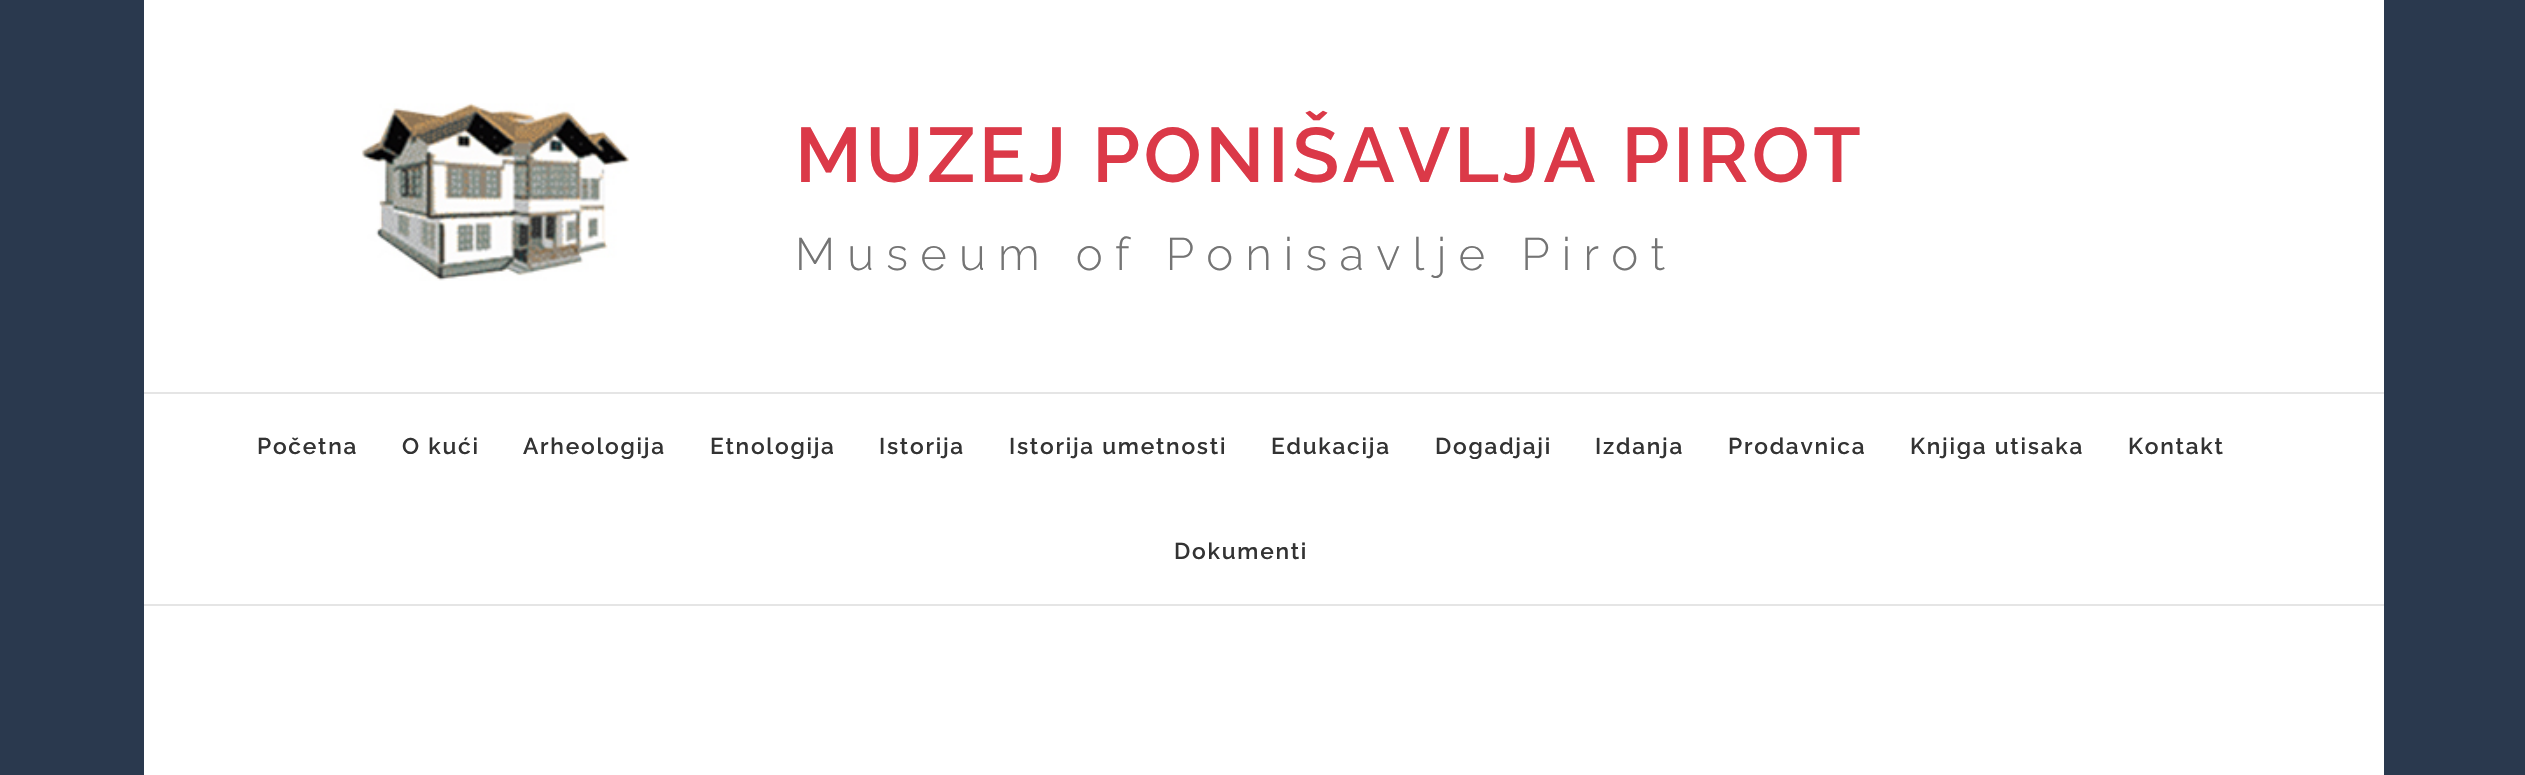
void draw(SkCanvas* canvas) {
    SkPaint paint;
    paint.setAntiAlias(true);
    auto spacedText = [&](const char* s, float x, float y, const SkFont& font, const SkPaint& ink, float letter, float word) {
        std::vector<SkGlyphID> glyphs(font.countText(s, strlen(s), SkTextEncoding::kUTF8));
        std::vector<float> xs(glyphs.size());
        font.textToGlyphs(s, strlen(s), SkTextEncoding::kUTF8, glyphs);
        font.getXPos(glyphs, xs, x);
        float extra = 0;
        for (size_t i = 0; i < glyphs.size(); i++) {
            xs[i] += extra;
            extra += letter + word * (glyphs[i] == font.unicharToGlyph(' '));
        }
        canvas->drawTextBlob(SkTextBlob::MakeFromPosHGlyphs(glyphs, xs, y, font), 0, 0, ink);
    };
    canvas->clear(0xFF2A394E);
    paint.setColor(0xFFFFFFFF);
    canvas->drawRect(SkRect::MakeXYWH(144, 0, 2240, 392), paint);
    paint.setColor(0xFFE5E5E5);
    canvas->drawRect(SkRect::MakeXYWH(144, 392, 2240, 2), paint);
    canvas->drawImageRect(SkImages::DeferredFromEncodedData(SkData::MakeFromFileName("img1.png")), SkRect::MakeXYWH(361, 103, 269, 178), SkSamplingOptions());
    SkFont font1(fontMgr->matchFamilyStyle("Raleway", SkFontStyle(600, SkFontStyle::kNormal_Width, SkFontStyle::kUpright_Slant)), 77);
    font1.setSubpixel(true);
    paint.setColor(0xFFDB3948);
    spacedText("MUZEJ PONIŠAVLJA PIROT", 795, 182, font1, paint, 3.5f, 0);
    SkFont font2(fontMgr->matchFamilyStyle("Raleway", SkFontStyle(300, SkFontStyle::kNormal_Width, SkFontStyle::kUpright_Slant)), 45.5f);
    font2.setSubpixel(true);
    paint.setColor(0xFF747474);
    spacedText("Museum of Ponisavlje Pirot", 795, 270, font2, paint, 12.25f, 0);
    paint.setColor(0xFFFFFFFF);
    canvas->drawRect(SkRect::MakeXYWH(144, 394, 2240, 210), paint);
    paint.setColor(0xFFE5E5E5);
    canvas->drawRect(SkRect::MakeXYWH(144, 604, 2240, 2), paint);
    SkFont font3(fontMgr->matchFamilyStyle("Raleway", SkFontStyle(600, SkFontStyle::kNormal_Width, SkFontStyle::kUpright_Slant)), 22.75f);
    font3.setSubpixel(true);
    paint.setColor(0xFF333333);
    spacedText("Početna", 257, 454, font3, paint, 1.75f, 0);
    spacedText("O kući", 402, 454, font3, paint, 1.75f, 0);
    spacedText("Arheologija", 523, 454, font3, paint, 1.75f, 0);
    spacedText("Etnologija", 710, 454, font3, paint, 1.75f, 0);
    spacedText("Istorija", 879, 454, font3, paint, 1.75f, 0);
    spacedText("Istorija umetnosti", 1009, 454, font3, paint, 1.75f, 0);
    spacedText("Edukacija", 1271, 454, font3, paint, 1.75f, 0);
    spacedText("Dogadjaji", 1435, 454, font3, paint, 1.75f, 0);
    spacedText("Izdanja", 1595, 454, font3, paint, 1.75f, 0);
    spacedText("Prodavnica", 1728, 454, font3, paint, 1.75f, 0);
    spacedText("Knjiga utisaka", 1910, 454, font3, paint, 1.75f, 0);
    spacedText("Kontakt", 2128, 454, font3, paint, 1.75f, 0);
    spacedText("Dokumenti", 1174, 559, font3, paint, 1.75f, 0);
    paint.setColor(0xFFFFFFFF);
    canvas->drawRect(SkRect::MakeXYWH(144, 606, 2240, 169), paint);
}
